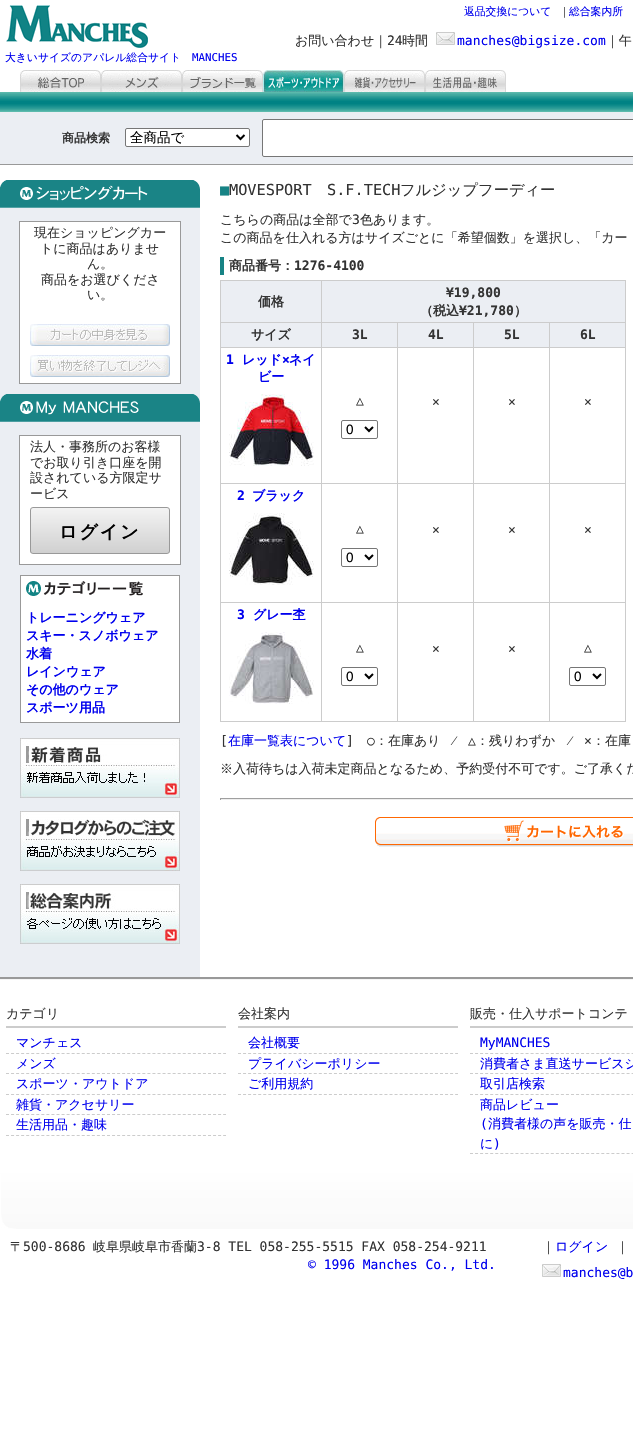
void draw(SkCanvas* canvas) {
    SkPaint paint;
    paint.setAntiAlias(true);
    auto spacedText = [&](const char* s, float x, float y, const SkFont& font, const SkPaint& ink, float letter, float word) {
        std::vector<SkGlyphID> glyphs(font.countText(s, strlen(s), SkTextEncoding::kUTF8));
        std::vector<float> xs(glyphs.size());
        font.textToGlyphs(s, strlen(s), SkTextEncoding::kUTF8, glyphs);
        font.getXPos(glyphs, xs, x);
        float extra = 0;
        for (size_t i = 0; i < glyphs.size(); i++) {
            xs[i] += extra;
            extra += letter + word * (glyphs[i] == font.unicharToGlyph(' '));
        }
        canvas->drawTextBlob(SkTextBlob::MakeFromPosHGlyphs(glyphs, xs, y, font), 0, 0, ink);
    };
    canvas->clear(0xFFFFFFFF);
    SkFont font1(fontMgr->matchFamilyStyle("WenQuanYi Zen Hei", SkFontStyle(500, SkFontStyle::kNormal_Width, SkFontStyle::kUpright_Slant)), 10.8f);
    font1.setSubpixel(true);
    paint.setColor(0xFF0000EE);
    canvas->drawString("返品交換について", 464, 15, font1, paint);
    paint.setColor(0xFF333333);
    canvas->drawString("｜", 559, 15, font1, paint);
    paint.setColor(0xFF0000EE);
    canvas->drawString("総合案内所", 569, 15, font1, paint);
    SkFont font2(fontMgr->matchFamilyStyle("WenQuanYi Zen Hei", SkFontStyle(500, SkFontStyle::kNormal_Width, SkFontStyle::kUpright_Slant)), 13);
    font2.setSubpixel(true);
    paint.setColor(0xFF333333);
    canvas->drawString("お問い合わせ｜", 295, 45, font2, paint);
    SkFont font3(fontMgr->matchFamilyStyle("DejaVu Sans Mono", SkFontStyle::Normal()), 13);
    font3.setSubpixel(true);
    canvas->drawString("24", 387, 45, font3, paint);
    canvas->drawString("時間", 402, 45, font2, paint);
    canvas->drawImageRect(SkImages::DeferredFromEncodedData(SkData::MakeFromFileName("img1.png")), SkRect::MakeXYWH(436, 32, 19, 13), SkSamplingOptions());
    paint.setColor(0xFF0000EE);
    canvas->drawString("manches@bigsize.com", 457, 45, font3, paint);
    paint.setColor(0xFF333333);
    canvas->drawString("｜午", 606, 45, font2, paint);
    canvas->drawImageRect(SkImages::DeferredFromEncodedData(SkData::MakeFromFileName("img2.png")), SkRect::MakeXYWH(6, 5, 142, 43), SkSamplingOptions());
    paint.setColor(0xFF0000EE);
    canvas->drawString("大きいサイズのアパレル総合サイト", 5, 61, font1, paint);
    SkFont font4(fontMgr->matchFamilyStyle("DejaVu Sans Mono", SkFontStyle::Normal()), 10.8f);
    font4.setSubpixel(true);
    canvas->drawString("MANCHES", 192, 61, font4, paint);
    canvas->drawImageRect(SkImages::DeferredFromEncodedData(SkData::MakeFromFileName("img3.png")), SkRect::MakeXYWH(20, 70, 81, 22), SkSamplingOptions());
    canvas->drawImageRect(SkImages::DeferredFromEncodedData(SkData::MakeFromFileName("img4.png")), SkRect::MakeXYWH(101, 70, 81, 22), SkSamplingOptions());
    canvas->drawImageRect(SkImages::DeferredFromEncodedData(SkData::MakeFromFileName("img5.png")), SkRect::MakeXYWH(182, 70, 81, 22), SkSamplingOptions());
    canvas->drawImageRect(SkImages::DeferredFromEncodedData(SkData::MakeFromFileName("img6.png")), SkRect::MakeXYWH(263, 70, 81, 22), SkSamplingOptions());
    canvas->drawImageRect(SkImages::DeferredFromEncodedData(SkData::MakeFromFileName("img7.png")), SkRect::MakeXYWH(344, 70, 81, 22), SkSamplingOptions());
    canvas->drawImageRect(SkImages::DeferredFromEncodedData(SkData::MakeFromFileName("img8.png")), SkRect::MakeXYWH(425, 70, 81, 22), SkSamplingOptions());
    canvas->drawImageRect(SkImages::DeferredFromEncodedData(SkData::MakeFromFileName("img9.png")), SkRect::MakeXYWH(0, 92, 633, 20), SkSamplingOptions());
    paint.setColor(0xFFEBEEF3);
    canvas->drawRect(SkRect::MakeXYWH(0, 112, 633, 52), paint);
    paint.setColor(0xFF999999);
    canvas->drawRect(SkRect::MakeXYWH(0, 164, 633, 1), paint);
    SkFont font5(fontMgr->matchFamilyStyle("WenQuanYi Zen Hei", SkFontStyle::Bold()), 12);
    font5.setSubpixel(true);
    paint.setColor(0xFF333333);
    canvas->drawString("商品検索", 62, 142, font5, paint);
    paint.setColor(0xFFFFFFFF);
    canvas->drawRoundRect(SkRect::MakeXYWH(125.5f, 128.5f, 124, 18), 1.5f, 1.5f, paint);
    paint.setStyle(SkPaint::kStroke_Style);
    paint.setStrokeWidth(1);
    paint.setColor(0xFF767676);
    canvas->drawRoundRect(SkRect::MakeXYWH(125.5f, 128.5f, 124, 18), 1.5f, 1.5f, paint);
    paint.setStrokeWidth(2);
    paint.setColor(0xFF000000);
    canvas->drawPath(SkPathBuilder().moveTo(236.5f, 135).lineTo(240.5f, 139).lineTo(244.5f, 135).detach(), paint);
    SkFont font6(fontMgr->matchFamilyStyle("WenQuanYi Zen Hei", SkFontStyle(500, SkFontStyle::kNormal_Width, SkFontStyle::kUpright_Slant)), 13.5f);
    font6.setSubpixel(true);
    paint.setStyle(SkPaint::kFill_Style);
    canvas->drawString("全商品で", 130, 142, font6, paint);
    paint.setColor(0xFFFFFFFF);
    canvas->drawRoundRect(SkRect::MakeXYWH(262.5f, 119.5f, 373, 37), 1.5f, 1.5f, paint);
    paint.setStyle(SkPaint::kStroke_Style);
    paint.setStrokeWidth(1);
    paint.setColor(0xFF767676);
    canvas->drawRoundRect(SkRect::MakeXYWH(262.5f, 119.5f, 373, 37), 1.5f, 1.5f, paint);
    paint.setStyle(SkPaint::kFill_Style);
    paint.setColor(0xFFEBEEF3);
    canvas->drawRect(SkRect::MakeXYWH(0, 208, 200, 769), paint);
    canvas->drawImageRect(SkImages::DeferredFromEncodedData(SkData::MakeFromFileName("img10.png")), SkRect::MakeXYWH(0, 180, 200, 28), SkSamplingOptions());
    paint.setColor(0xFFFFFFFF);
    canvas->drawRect(SkRect::MakeXYWH(19.5f, 221.5f, 161, 162), paint);
    paint.setStyle(SkPaint::kStroke_Style);
    paint.setColor(0xFF999999);
    canvas->drawRect(SkRect::MakeXYWH(19.5f, 221.5f, 161, 162), paint);
    paint.setStyle(SkPaint::kFill_Style);
    paint.setColor(0xFF333333);
    canvas->drawString("現在ショッピングカー", 34, 237, font2, paint);
    canvas->drawString("トに商品はありませ", 40, 253, font2, paint);
    canvas->drawString("ん。", 87, 268, font2, paint);
    canvas->drawString("商品をお選びくださ", 41, 284, font2, paint);
    canvas->drawString("い。", 87, 299, font2, paint);
    canvas->drawImageRect(SkImages::DeferredFromEncodedData(SkData::MakeFromFileName("img11.png")), SkRect::MakeXYWH(30, 324, 140, 22), SkSamplingOptions());
    canvas->drawImageRect(SkImages::DeferredFromEncodedData(SkData::MakeFromFileName("img12.png")), SkRect::MakeXYWH(30, 355, 140, 22), SkSamplingOptions());
    canvas->drawImageRect(SkImages::DeferredFromEncodedData(SkData::MakeFromFileName("img13.png")), SkRect::MakeXYWH(0, 394, 200, 28), SkSamplingOptions());
    paint.setColor(0xFFFFFFFF);
    canvas->drawRect(SkRect::MakeXYWH(19.5f, 435.5f, 161, 129), paint);
    paint.setStyle(SkPaint::kStroke_Style);
    paint.setColor(0xFF999999);
    canvas->drawRect(SkRect::MakeXYWH(19.5f, 435.5f, 161, 129), paint);
    paint.setStyle(SkPaint::kFill_Style);
    paint.setColor(0xFF333333);
    canvas->drawString("法人・事務所のお客様", 30, 451, font2, paint);
    canvas->drawString("でお取り引き口座を開", 30, 467, font2, paint);
    canvas->drawString("設されている方限定サ", 30, 482, font2, paint);
    canvas->drawString("ービス", 30, 498, font2, paint);
    canvas->save();
    canvas->clipPath(SkPathBuilder().moveTo(33, 507).lineTo(167, 507).cubicTo(168.5f, 507, 170, 508.5f, 170, 510).lineTo(170, 551).cubicTo(170, 552.5f, 168.5f, 554, 167, 554).lineTo(33, 554).cubicTo(31.5f, 554, 30, 552.5f, 30, 551).lineTo(30, 510).cubicTo(30, 508.5f, 31.5f, 507, 33, 507).close().detach(), true);
    {
        const SkColor colors[] = {0xFFF3F3F3, 0xFFD0D0D0};
        const float stops[] = {0, 1};
        const SkPoint ends[] = {{100, 508}, {100, 553}};
        paint.setShader(SkGradientShader::MakeLinear(ends, colors, stops, 2, SkTileMode::kClamp));
        paint.setAlpha(255);
    }
    canvas->drawRect(SkRect::MakeXYWH(30, 508, 140, 45), paint);
    canvas->restore();
    paint.setStyle(SkPaint::kStroke_Style);
    paint.setShader(nullptr);
    paint.setColor(0xFF999999);
    canvas->drawRoundRect(SkRect::MakeXYWH(30.5f, 507.5f, 139, 46), 2.5f, 2.5f, paint);
    SkFont font7(fontMgr->matchFamilyStyle("WenQuanYi Zen Hei", SkFontStyle::Bold()), 18);
    font7.setSubpixel(true);
    paint.setStyle(SkPaint::kFill_Style);
    paint.setColor(0xFF000000);
    spacedText("ログイン", 59, 538, font7, paint, 2, 0);
    paint.setColor(0xFFFFFFFF);
    canvas->drawRect(SkRect::MakeXYWH(20.5f, 575.5f, 159, 147), paint);
    paint.setStyle(SkPaint::kStroke_Style);
    paint.setColor(0xFF999999);
    canvas->drawRect(SkRect::MakeXYWH(20.5f, 575.5f, 159, 147), paint);
    canvas->drawImageRect(SkImages::DeferredFromEncodedData(SkData::MakeFromFileName("img14.png")), SkRect::MakeXYWH(26, 581, 117, 15), SkSamplingOptions());
    SkFont font8(fontMgr->matchFamilyStyle("WenQuanYi Zen Hei", SkFontStyle::Bold()), 13);
    font8.setSubpixel(true);
    paint.setStyle(SkPaint::kFill_Style);
    paint.setColor(0xFF0000EE);
    canvas->drawString("トレーニングウェア", 26, 622, font8, paint);
    canvas->drawString("スキー・スノボウェア", 26, 640, font8, paint);
    canvas->drawString("水着", 26, 658, font8, paint);
    canvas->drawString("レインウェア", 26, 676, font8, paint);
    canvas->drawString("その他のウェア", 26, 694, font8, paint);
    canvas->drawString("スポーツ用品", 26, 712, font8, paint);
    canvas->drawImageRect(SkImages::DeferredFromEncodedData(SkData::MakeFromFileName("img15.png")), SkRect::MakeXYWH(20, 738, 160, 60), SkSamplingOptions());
    canvas->drawImageRect(SkImages::DeferredFromEncodedData(SkData::MakeFromFileName("img16.png")), SkRect::MakeXYWH(20, 811, 160, 60), SkSamplingOptions());
    canvas->drawImageRect(SkImages::DeferredFromEncodedData(SkData::MakeFromFileName("img17.png")), SkRect::MakeXYWH(20, 884, 160, 60), SkSamplingOptions());
    SkFont font9(fontMgr->matchFamilyStyle("DejaVu Sans Mono", SkFontStyle::Normal()), 15.25f);
    font9.setSubpixel(true);
    paint.setColor(0xFF178385);
    canvas->drawString("■", 220, 195, font9, paint);
    paint.setColor(0xFF333333);
    canvas->drawString("MOVESPORT", 229, 195, font9, paint);
    canvas->drawString("S.F.TECH", 327, 195, font9, paint);
    SkFont font10(fontMgr->matchFamilyStyle("WenQuanYi Zen Hei", SkFontStyle(500, SkFontStyle::kNormal_Width, SkFontStyle::kUpright_Slant)), 15.25f);
    font10.setSubpixel(true);
    canvas->drawString("フルジップフーディー", 400, 195, font10, paint);
    canvas->drawString("こちらの商品は全部で", 220, 224, font2, paint);
    canvas->drawString("3", 352, 224, font3, paint);
    canvas->drawString("色あります。", 360, 224, font2, paint);
    canvas->drawString("この商品を仕入れる方はサイズごとに「希望個数」を選択し、「カー", 220, 242, font2, paint);
    paint.setColor(0xFF178385);
    canvas->drawRect(SkRect::MakeXYWH(220, 257, 4, 18), paint);
    paint.setColor(0xFF333333);
    canvas->drawString("商品番号：", 229, 270, font8, paint);
    SkFont font11(fontMgr->matchFamilyStyle("DejaVu Sans Mono", SkFontStyle::Bold()), 13);
    font11.setSubpixel(true);
    canvas->drawString("1276-4100", 294, 270, font11, paint);
    paint.setColor(0xFFCCCCCC);
    canvas->drawRect(SkRect::MakeXYWH(220, 280, 406, 1), paint);
    canvas->drawRect(SkRect::MakeXYWH(220, 280, 1, 442), paint);
    paint.setColor(0xFFEBEEF3);
    canvas->drawRect(SkRect::MakeXYWH(221, 281, 100, 41), paint);
    paint.setColor(0xFFCCCCCC);
    canvas->drawRect(SkRect::MakeXYWH(321, 281, 1, 441), paint);
    canvas->drawRect(SkRect::MakeXYWH(221, 322, 101, 1), paint);
    paint.setColor(0xFF333333);
    canvas->drawString("価格", 258, 306, font8, paint);
    paint.setColor(0xFFEBEEF3);
    canvas->drawRect(SkRect::MakeXYWH(322, 281, 303, 41), paint);
    paint.setColor(0xFFCCCCCC);
    canvas->drawRect(SkRect::MakeXYWH(625, 281, 1, 441), paint);
    canvas->drawRect(SkRect::MakeXYWH(322, 322, 304, 1), paint);
    paint.setColor(0xFF333333);
    canvas->drawString("¥19,800", 446, 297, font11, paint);
    canvas->drawString("（税込", 420, 315, font8, paint);
    canvas->drawString("¥21,780", 459, 315, font11, paint);
    canvas->drawString("）", 514, 315, font8, paint);
    paint.setColor(0xFFEBEEF3);
    canvas->drawRect(SkRect::MakeXYWH(221, 323, 100, 24), paint);
    paint.setColor(0xFFCCCCCC);
    canvas->drawRect(SkRect::MakeXYWH(221, 347, 101, 1), paint);
    paint.setColor(0xFF333333);
    canvas->drawString("サイズ", 251, 339, font8, paint);
    paint.setColor(0xFFEBEEF3);
    canvas->drawRect(SkRect::MakeXYWH(322, 323, 75, 24), paint);
    paint.setColor(0xFFCCCCCC);
    canvas->drawRect(SkRect::MakeXYWH(397, 323, 1, 399), paint);
    canvas->drawRect(SkRect::MakeXYWH(322, 347, 76, 1), paint);
    paint.setColor(0xFF333333);
    canvas->drawString("3L", 352, 339, font11, paint);
    paint.setColor(0xFFEBEEF3);
    canvas->drawRect(SkRect::MakeXYWH(398, 323, 75, 24), paint);
    paint.setColor(0xFFCCCCCC);
    canvas->drawRect(SkRect::MakeXYWH(473, 323, 1, 399), paint);
    canvas->drawRect(SkRect::MakeXYWH(398, 347, 76, 1), paint);
    paint.setColor(0xFF333333);
    canvas->drawString("4L", 428, 339, font11, paint);
    paint.setColor(0xFFEBEEF3);
    canvas->drawRect(SkRect::MakeXYWH(474, 323, 75, 24), paint);
    paint.setColor(0xFFCCCCCC);
    canvas->drawRect(SkRect::MakeXYWH(549, 323, 1, 399), paint);
    canvas->drawRect(SkRect::MakeXYWH(474, 347, 152, 1), paint);
    paint.setColor(0xFF333333);
    canvas->drawString("5L", 504, 339, font11, paint);
    paint.setColor(0xFFEBEEF3);
    canvas->drawRect(SkRect::MakeXYWH(550, 323, 75, 24), paint);
    paint.setColor(0xFF333333);
    canvas->drawString("6L", 580, 339, font11, paint);
    paint.setColor(0xFFCCCCCC);
    canvas->drawRect(SkRect::MakeXYWH(221, 483, 405, 1), paint);
    paint.setColor(0xFF0000EE);
    canvas->drawString("1", 226, 364, font11, paint);
    canvas->drawString("レッド", 242, 364, font8, paint);
    canvas->drawString("×", 282, 364, font11, paint);
    canvas->drawString("ネイ", 289, 364, font8, paint);
    canvas->drawString("ビー", 258, 381, font8, paint);
    canvas->drawImageRect(SkImages::DeferredFromEncodedData(SkData::MakeFromFileName("img18.png")), SkRect::MakeXYWH(229, 394, 85, 72), SkSamplingOptions());
    paint.setColor(0xFF333333);
    canvas->drawString("△", 356, 405, font3, paint);
    paint.setStyle(SkPaint::kStroke_Style);
    paint.setColor(0xFF767676);
    canvas->drawRoundRect(SkRect::MakeXYWH(341.5f, 420.5f, 36, 18), 1.5f, 1.5f, paint);
    paint.setStrokeWidth(2);
    paint.setColor(0xFF000000);
    canvas->drawPath(SkPathBuilder().moveTo(365, 427).lineTo(369, 431).lineTo(373, 427).detach(), paint);
    SkFont font12(fontMgr->matchFamilyStyle("Liberation Sans", SkFontStyle::Normal()), 13.5f);
    font12.setSubpixel(true);
    paint.setStyle(SkPaint::kFill_Style);
    canvas->drawString("0", 346, 434, font12, paint);
    paint.setColor(0xFF333333);
    canvas->drawString("×", 432, 406, font3, paint);
    canvas->drawString("×", 508, 406, font3, paint);
    canvas->drawString("×", 584, 406, font3, paint);
    paint.setColor(0xFFCCCCCC);
    canvas->drawRect(SkRect::MakeXYWH(221, 602, 405, 1), paint);
    paint.setColor(0xFF0000EE);
    canvas->drawString("2", 237, 500, font11, paint);
    canvas->drawString("ブラック", 252, 500, font8, paint);
    canvas->drawImageRect(SkImages::DeferredFromEncodedData(SkData::MakeFromFileName("img19.png")), SkRect::MakeXYWH(229, 513, 85, 72), SkSamplingOptions());
    paint.setColor(0xFF333333);
    canvas->drawString("△", 356, 533, font3, paint);
    paint.setStyle(SkPaint::kStroke_Style);
    paint.setStrokeWidth(1);
    paint.setColor(0xFF767676);
    canvas->drawRoundRect(SkRect::MakeXYWH(341.5f, 548.5f, 36, 18), 1.5f, 1.5f, paint);
    paint.setStrokeWidth(2);
    paint.setColor(0xFF000000);
    canvas->drawPath(SkPathBuilder().moveTo(365, 555).lineTo(369, 559).lineTo(373, 555).detach(), paint);
    paint.setStyle(SkPaint::kFill_Style);
    canvas->drawString("0", 346, 562, font12, paint);
    paint.setColor(0xFF333333);
    canvas->drawString("×", 432, 534, font3, paint);
    canvas->drawString("×", 508, 534, font3, paint);
    canvas->drawString("×", 584, 534, font3, paint);
    paint.setColor(0xFFCCCCCC);
    canvas->drawRect(SkRect::MakeXYWH(221, 721, 405, 1), paint);
    paint.setColor(0xFF0000EE);
    canvas->drawString("3", 237, 619, font11, paint);
    canvas->drawString("グレー杢", 253, 619, font8, paint);
    canvas->drawImageRect(SkImages::DeferredFromEncodedData(SkData::MakeFromFileName("img20.png")), SkRect::MakeXYWH(229, 632, 85, 72), SkSamplingOptions());
    paint.setColor(0xFF333333);
    canvas->drawString("△", 356, 652, font3, paint);
    paint.setStyle(SkPaint::kStroke_Style);
    paint.setStrokeWidth(1);
    paint.setColor(0xFF767676);
    canvas->drawRoundRect(SkRect::MakeXYWH(341.5f, 667.5f, 36, 18), 1.5f, 1.5f, paint);
    paint.setStrokeWidth(2);
    paint.setColor(0xFF000000);
    canvas->drawPath(SkPathBuilder().moveTo(365, 674).lineTo(369, 678).lineTo(373, 674).detach(), paint);
    paint.setStyle(SkPaint::kFill_Style);
    canvas->drawString("0", 346, 681, font12, paint);
    paint.setColor(0xFF333333);
    canvas->drawString("×", 432, 653, font3, paint);
    canvas->drawString("×", 508, 653, font3, paint);
    canvas->drawString("△", 584, 652, font3, paint);
    paint.setStyle(SkPaint::kStroke_Style);
    paint.setStrokeWidth(1);
    paint.setColor(0xFF767676);
    canvas->drawRoundRect(SkRect::MakeXYWH(569.5f, 667.5f, 36, 18), 1.5f, 1.5f, paint);
    paint.setStrokeWidth(2);
    paint.setColor(0xFF000000);
    canvas->drawPath(SkPathBuilder().moveTo(593, 674).lineTo(597, 678).lineTo(601, 674).detach(), paint);
    paint.setStyle(SkPaint::kFill_Style);
    canvas->drawString("0", 574, 681, font12, paint);
    paint.setColor(0xFF333333);
    canvas->drawString("[", 220, 745, font3, paint);
    paint.setColor(0xFF0000EE);
    canvas->drawString("在庫一覧表について", 228, 745, font2, paint);
    paint.setColor(0xFF333333);
    canvas->drawString("]", 346, 745, font3, paint);
    canvas->drawString("○", 367, 745, font3, paint);
    canvas->drawString("：在庫あり", 375, 745, font2, paint);
    SkFont font13(fontMgr->matchFamilyStyle("Liberation Serif", SkFontStyle::Normal()), 13);
    font13.setSubpixel(true);
    canvas->drawString("⁄", 453, 745, font13, paint);
    canvas->drawString("△", 468, 745, font3, paint);
    canvas->drawString("：残りわずか", 476, 745, font2, paint);
    canvas->drawString("⁄", 569, 745, font13, paint);
    canvas->drawString("×", 584, 745, font3, paint);
    canvas->drawString("：在庫", 592, 745, font2, paint);
    canvas->drawString("※入荷待ちは入荷未定商品となるため、予約受付不可です。ご了承くだ", 220, 773, font2, paint);
    paint.setColor(0xFF9F9F9F);
    canvas->drawRect(SkRect::MakeXYWH(220, 798, 413, 1), paint);
    paint.setColor(0xFFEEEEEE);
    canvas->drawRect(SkRect::MakeXYWH(220, 799, 413, 1), paint);
    paint.setColor(0xFF9F9F9F);
    canvas->drawRect(SkRect::MakeXYWH(220, 798, 1, 2), paint);
    canvas->drawImageRect(SkImages::DeferredFromEncodedData(SkData::MakeFromFileName("img21.png")), SkRect::MakeXYWH(375, 817, 258, 30), SkSamplingOptions());
    canvas->drawImageRect(SkImages::DeferredFromEncodedData(SkData::MakeFromFileName("img22.png")), SkRect::MakeXYWH(0, 977, 633, 3), SkSamplingOptions());
    canvas->drawImageRect(SkImages::DeferredFromEncodedData(SkData::MakeFromFileName("img23.png")), SkRect::MakeXYWH(0, 980, 633, 249), SkSamplingOptions());
    paint.setColor(0xFFCCCCCC);
    canvas->drawRect(SkRect::MakeXYWH(6, 1026, 220, 2), paint);
    paint.setColor(0xFF333333);
    canvas->drawString("カテゴリ", 6, 1018, font2, paint);
    paint.setStyle(SkPaint::kStroke_Style);
    paint.setStrokeWidth(1);
    paint.setColor(0xFFCCCCCC);
    paint.setPathEffect(SkDashPathEffect::Make({{3, 2.05f}}, 0));
    canvas->drawPath(SkPathBuilder().moveTo(6, 1053.5f).lineTo(226, 1053.5f).detach(), paint);
    paint.setPathEffect(nullptr);
    paint.setStyle(SkPaint::kFill_Style);
    paint.setColor(0xFF0000EE);
    canvas->drawString("マンチェス", 16, 1047, font2, paint);
    paint.setStyle(SkPaint::kStroke_Style);
    paint.setColor(0xFFCCCCCC);
    paint.setPathEffect(SkDashPathEffect::Make({{3, 2.05f}}, 0));
    canvas->drawPath(SkPathBuilder().moveTo(6, 1073.5f).lineTo(226, 1073.5f).detach(), paint);
    paint.setPathEffect(nullptr);
    paint.setStyle(SkPaint::kFill_Style);
    paint.setColor(0xFF0000EE);
    canvas->drawString("メンズ", 16, 1068, font2, paint);
    paint.setStyle(SkPaint::kStroke_Style);
    paint.setColor(0xFFCCCCCC);
    paint.setPathEffect(SkDashPathEffect::Make({{3, 2.05f}}, 0));
    canvas->drawPath(SkPathBuilder().moveTo(6, 1094.5f).lineTo(226, 1094.5f).detach(), paint);
    paint.setPathEffect(nullptr);
    paint.setStyle(SkPaint::kFill_Style);
    paint.setColor(0xFF0000EE);
    canvas->drawString("スポーツ・アウトドア", 16, 1088, font2, paint);
    paint.setStyle(SkPaint::kStroke_Style);
    paint.setColor(0xFFCCCCCC);
    paint.setPathEffect(SkDashPathEffect::Make({{3, 2.05f}}, 0));
    canvas->drawPath(SkPathBuilder().moveTo(6, 1114.5f).lineTo(226, 1114.5f).detach(), paint);
    paint.setPathEffect(nullptr);
    paint.setStyle(SkPaint::kFill_Style);
    paint.setColor(0xFF0000EE);
    canvas->drawString("雑貨・アクセサリー", 16, 1109, font2, paint);
    paint.setStyle(SkPaint::kStroke_Style);
    paint.setColor(0xFFCCCCCC);
    paint.setPathEffect(SkDashPathEffect::Make({{3, 2.05f}}, 0));
    canvas->drawPath(SkPathBuilder().moveTo(6, 1135.5f).lineTo(226, 1135.5f).detach(), paint);
    paint.setPathEffect(nullptr);
    paint.setStyle(SkPaint::kFill_Style);
    paint.setColor(0xFF0000EE);
    canvas->drawString("生活用品・趣味", 16, 1129, font2, paint);
    paint.setColor(0xFFCCCCCC);
    canvas->drawRect(SkRect::MakeXYWH(238, 1026, 220, 2), paint);
    paint.setColor(0xFF333333);
    canvas->drawString("会社案内", 238, 1018, font2, paint);
    paint.setStyle(SkPaint::kStroke_Style);
    paint.setColor(0xFFCCCCCC);
    paint.setPathEffect(SkDashPathEffect::Make({{3, 2.05f}}, 0));
    canvas->drawPath(SkPathBuilder().moveTo(238, 1053.5f).lineTo(458, 1053.5f).detach(), paint);
    paint.setPathEffect(nullptr);
    paint.setStyle(SkPaint::kFill_Style);
    paint.setColor(0xFF0000EE);
    canvas->drawString("会社概要", 248, 1047, font2, paint);
    paint.setStyle(SkPaint::kStroke_Style);
    paint.setColor(0xFFCCCCCC);
    paint.setPathEffect(SkDashPathEffect::Make({{3, 2.05f}}, 0));
    canvas->drawPath(SkPathBuilder().moveTo(238, 1073.5f).lineTo(458, 1073.5f).detach(), paint);
    paint.setPathEffect(nullptr);
    paint.setStyle(SkPaint::kFill_Style);
    paint.setColor(0xFF0000EE);
    canvas->drawString("プライバシーポリシー", 248, 1068, font2, paint);
    paint.setStyle(SkPaint::kStroke_Style);
    paint.setColor(0xFFCCCCCC);
    paint.setPathEffect(SkDashPathEffect::Make({{3, 2.05f}}, 0));
    canvas->drawPath(SkPathBuilder().moveTo(238, 1094.5f).lineTo(458, 1094.5f).detach(), paint);
    paint.setPathEffect(nullptr);
    paint.setStyle(SkPaint::kFill_Style);
    paint.setColor(0xFF0000EE);
    canvas->drawString("ご利用規約", 248, 1088, font2, paint);
    paint.setColor(0xFFCCCCCC);
    canvas->drawRect(SkRect::MakeXYWH(470, 1026, 163, 2), paint);
    paint.setColor(0xFF333333);
    canvas->drawString("販売・仕入サポートコンテ", 470, 1018, font2, paint);
    paint.setStyle(SkPaint::kStroke_Style);
    paint.setColor(0xFFCCCCCC);
    paint.setPathEffect(SkDashPathEffect::Make({{3, 2.05f}}, 0));
    canvas->drawPath(SkPathBuilder().moveTo(470, 1053.5f).lineTo(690, 1053.5f).detach(), paint);
    paint.setPathEffect(nullptr);
    paint.setStyle(SkPaint::kFill_Style);
    paint.setColor(0xFF0000EE);
    canvas->drawString("MyMANCHES", 480, 1047, font3, paint);
    paint.setStyle(SkPaint::kStroke_Style);
    paint.setColor(0xFFCCCCCC);
    paint.setPathEffect(SkDashPathEffect::Make({{3, 2.05f}}, 0));
    canvas->drawPath(SkPathBuilder().moveTo(470, 1073.5f).lineTo(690, 1073.5f).detach(), paint);
    paint.setPathEffect(nullptr);
    paint.setStyle(SkPaint::kFill_Style);
    paint.setColor(0xFF0000EE);
    canvas->drawString("消費者さま直送サービスシ", 480, 1068, font2, paint);
    paint.setStyle(SkPaint::kStroke_Style);
    paint.setColor(0xFFCCCCCC);
    paint.setPathEffect(SkDashPathEffect::Make({{3, 2.05f}}, 0));
    canvas->drawPath(SkPathBuilder().moveTo(470, 1094.5f).lineTo(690, 1094.5f).detach(), paint);
    paint.setPathEffect(nullptr);
    paint.setStyle(SkPaint::kFill_Style);
    paint.setColor(0xFF0000EE);
    canvas->drawString("取引店検索", 480, 1088, font2, paint);
    paint.setStyle(SkPaint::kStroke_Style);
    paint.setColor(0xFFCCCCCC);
    paint.setPathEffect(SkDashPathEffect::Make({{3, 2.05f}}, 0));
    canvas->drawPath(SkPathBuilder().moveTo(470, 1153.5f).lineTo(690, 1153.5f).detach(), paint);
    paint.setPathEffect(nullptr);
    paint.setStyle(SkPaint::kFill_Style);
    paint.setColor(0xFF0000EE);
    canvas->drawString("商品レビュー", 480, 1109, font2, paint);
    canvas->drawString("(", 480, 1128, font3, paint);
    canvas->drawString("消費者様の声を販売・仕", 488, 1128, font2, paint);
    canvas->drawString("に", 480, 1148, font2, paint);
    canvas->drawString(")", 493, 1148, font3, paint);
    paint.setColor(0xFF333333);
    canvas->drawString("〒", 10, 1251, font2, paint);
    canvas->drawString("500-8686", 23, 1251, font3, paint);
    canvas->drawString("岐阜県岐阜市香蘭", 93, 1251, font2, paint);
    canvas->drawString("3-8 TEL 058-255-5515 FAX 058-254-9211", 197, 1251, font3, paint);
    paint.setColor(0xFF0000EE);
    canvas->drawString("© 1996 Manches Co., Ltd.", 308, 1269, font3, paint);
    paint.setColor(0xFF333333);
    canvas->drawString("｜", 542, 1251, font2, paint);
    paint.setColor(0xFF0000EE);
    canvas->drawString("ログイン", 555, 1251, font2, paint);
    paint.setColor(0xFF333333);
    canvas->drawString("｜", 616, 1251, font2, paint);
    canvas->drawImageRect(SkImages::DeferredFromEncodedData(SkData::MakeFromFileName("img1.png")), SkRect::MakeXYWH(542, 1264, 19, 13), SkSamplingOptions());
    paint.setColor(0xFF0000EE);
    canvas->drawString("manches@b", 563, 1277, font3, paint);
}
